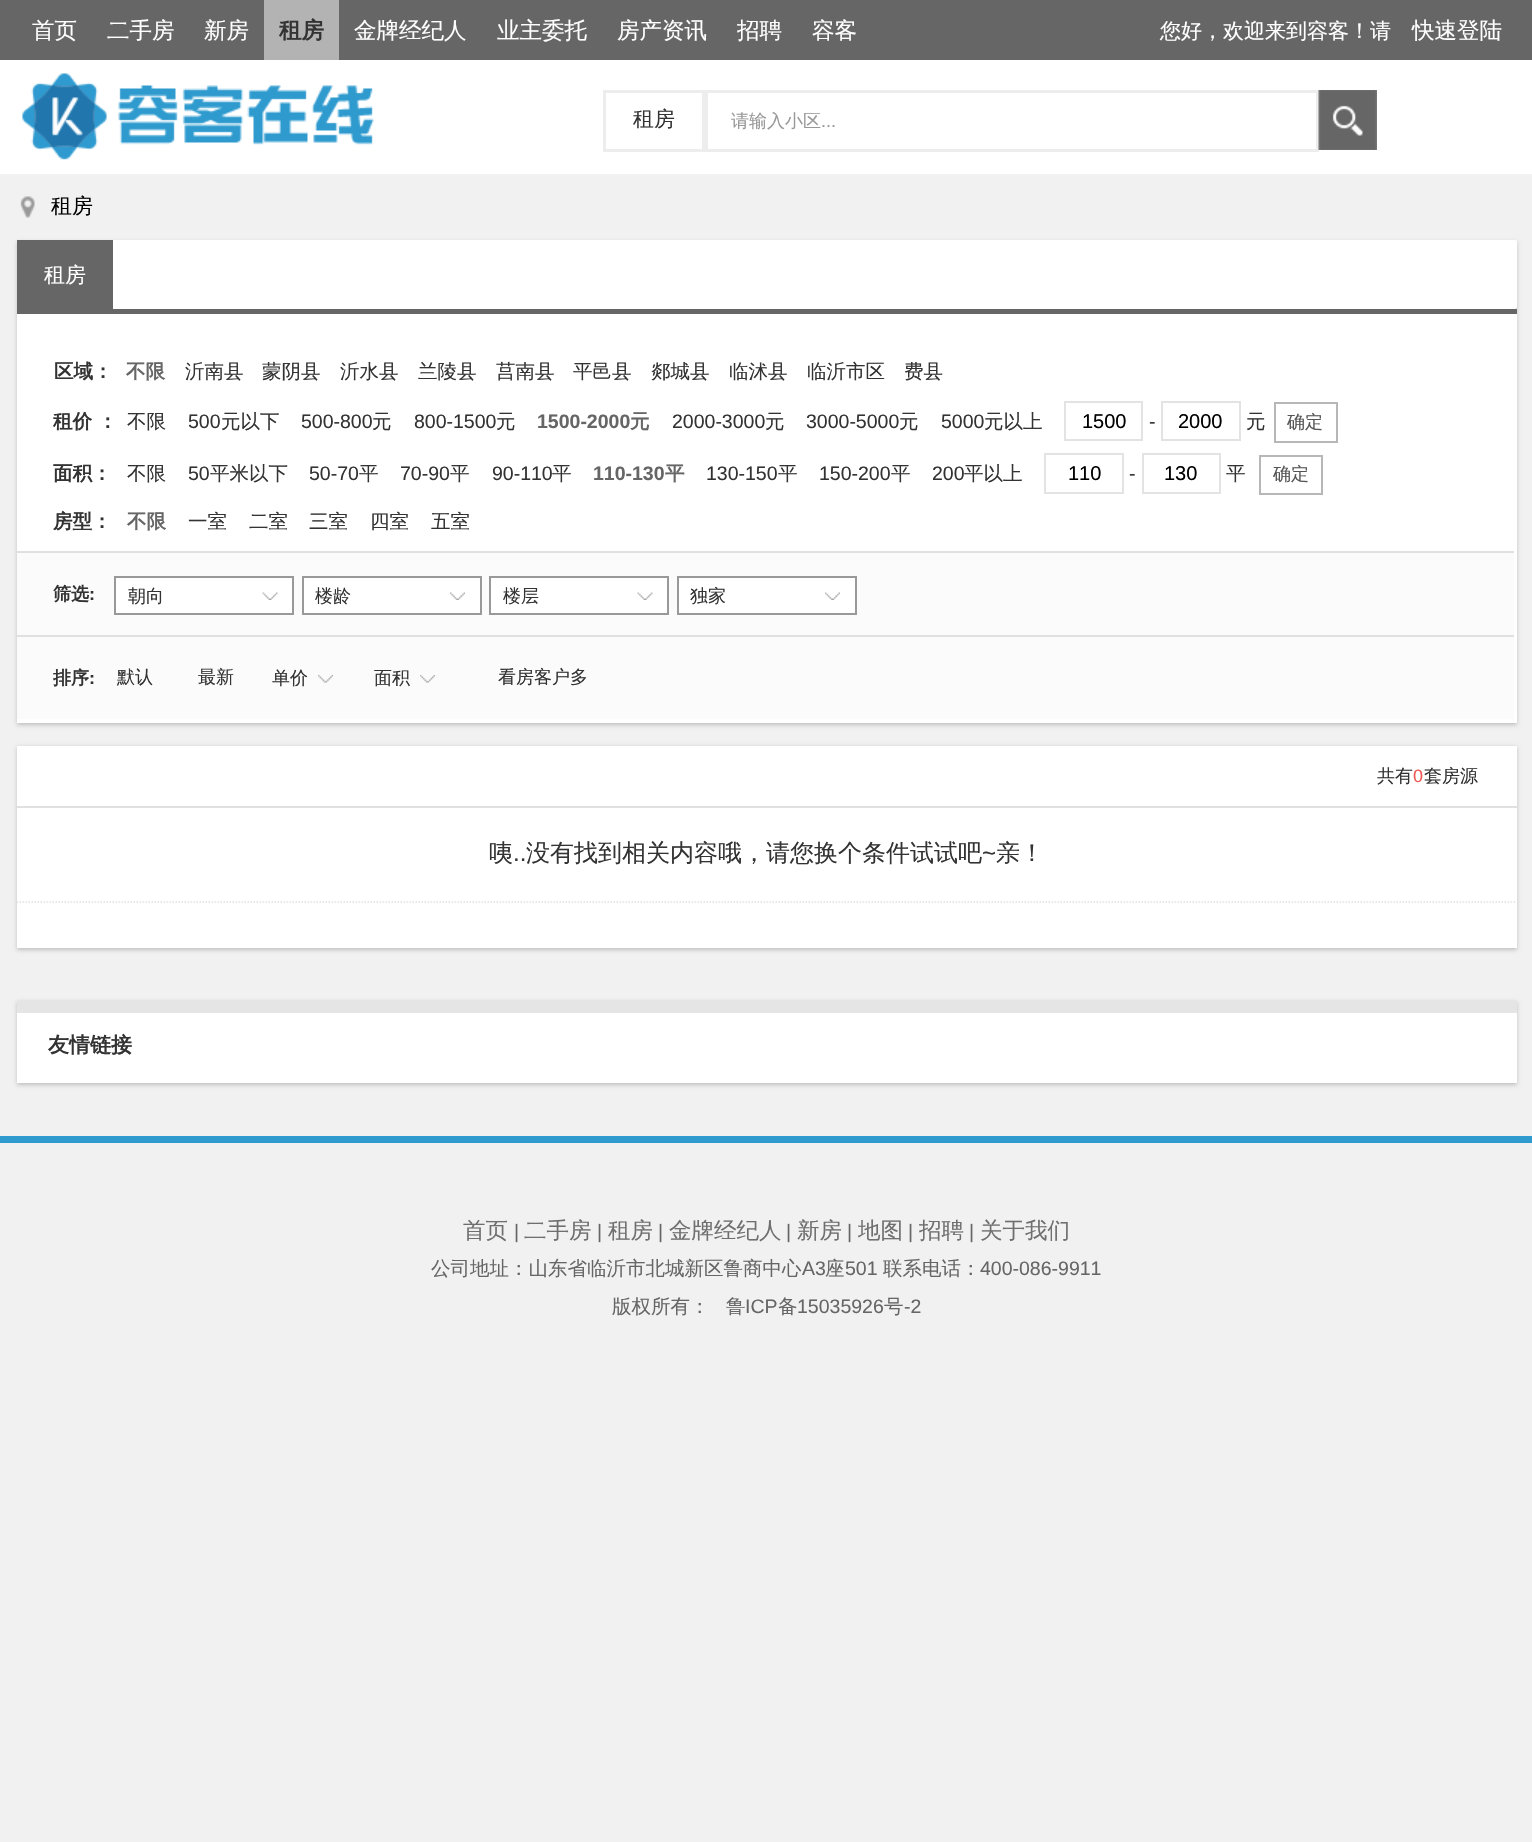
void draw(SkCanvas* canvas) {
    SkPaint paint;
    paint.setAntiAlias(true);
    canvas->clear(0xFFF1F1F1);
    paint.setColor(0xFF666666);
    canvas->drawRect(SkRect::MakeXYWH(0, 0, 1532, 60), paint);
    SkFont font1(fontMgr->matchFamilyStyle("WenQuanYi Zen Hei", SkFontStyle(500, SkFontStyle::kNormal_Width, SkFontStyle::kUpright_Slant)), 22.5f);
    font1.setSubpixel(true);
    paint.setColor(0xFFFFFFFF);
    canvas->drawString("首页", 32, 38, font1, paint);
    canvas->drawString("二手房", 107, 38, font1, paint);
    canvas->drawString("新房", 204, 38, font1, paint);
    paint.setColor(0xFFB3B3B3);
    canvas->drawRect(SkRect::MakeXYWH(264, 0, 75, 60), paint);
    SkFont font2(fontMgr->matchFamilyStyle("WenQuanYi Zen Hei", SkFontStyle::Bold()), 22.5f);
    font2.setSubpixel(true);
    paint.setColor(0xFF333333);
    canvas->drawString("租房", 279, 38, font2, paint);
    paint.setColor(0xFFFFFFFF);
    canvas->drawString("金牌经纪人", 354, 38, font1, paint);
    canvas->drawString("业主委托", 497, 38, font1, paint);
    canvas->drawString("房产资讯", 617, 38, font1, paint);
    canvas->drawString("招聘", 737, 38, font1, paint);
    canvas->drawString("容客", 812, 38, font1, paint);
    SkFont font3(fontMgr->matchFamilyStyle("WenQuanYi Zen Hei", SkFontStyle(500, SkFontStyle::kNormal_Width, SkFontStyle::kUpright_Slant)), 21);
    font3.setSubpixel(true);
    canvas->drawString("您好，欢迎来到容客！请", 1160, 38, font3, paint);
    canvas->drawString("快速登陆", 1412, 38, font1, paint);
    canvas->drawRect(SkRect::MakeXYWH(0, 60, 1532, 114), paint);
    canvas->drawImageRect(SkImages::DeferredFromEncodedData(SkData::MakeFromFileName("img1.png")), SkRect::MakeXYWH(22, 73, 352, 87), SkSamplingOptions());
    paint.setStyle(SkPaint::kStroke_Style);
    paint.setStrokeWidth(3);
    paint.setColor(0xFFEDEDED);
    canvas->drawRect(SkRect::MakeXYWH(604.5f, 91.5f, 99, 59), paint);
    paint.setStyle(SkPaint::kFill_Style);
    paint.setColor(0xFF333333);
    canvas->drawString("租房", 633, 126, font3, paint);
    paint.setStyle(SkPaint::kStroke_Style);
    paint.setColor(0xFFEDEDED);
    canvas->drawRect(SkRect::MakeXYWH(706.5f, 91.5f, 611, 59), paint);
    SkFont font4(fontMgr->matchFamilyStyle("WenQuanYi Zen Hei", SkFontStyle(500, SkFontStyle::kNormal_Width, SkFontStyle::kUpright_Slant)), 18);
    font4.setSubpixel(true);
    paint.setStyle(SkPaint::kFill_Style);
    paint.setColor(0xFF999999);
    canvas->drawString("请输入小区", 731, 127, font4, paint);
    SkFont font5(fontMgr->matchFamilyStyle("Liberation Sans", SkFontStyle::Normal()), 18);
    font5.setSubpixel(true);
    canvas->drawString("...", 821, 127, font5, paint);
    canvas->drawImageRect(SkImages::DeferredFromEncodedData(SkData::MakeFromFileName("img2.png")), SkRect::MakeXYWH(1318, 90, 59, 60), SkSamplingOptions());
    canvas->drawImageRect(SkImages::DeferredFromEncodedData(SkData::MakeFromFileName("img3.png")), SkRect::MakeXYWH(20, 196, 15, 22), SkSamplingOptions());
    paint.setColor(0xFF000000);
    canvas->drawString("租房", 51, 213, font3, paint);
    paint.setColor(0x33000000);
    paint.setMaskFilter(SkMaskFilter::MakeBlur(kNormal_SkBlurStyle, 2));
    canvas->drawRect(SkRect::MakeXYWH(17, 242, 1500, 483), paint);
    paint.setMaskFilter(nullptr);
    paint.setColor(0xFFFFFFFF);
    canvas->drawRect(SkRect::MakeXYWH(17, 314, 1500, 409), paint);
    {
        const SkColor colors[] = {0xFFFBFBFB, 0xFFF6F6F6};
        const float stops[] = {0, 1};
        const SkPoint ends[] = {{767, 240}, {767, 309}};
        paint.setShader(SkGradientShader::MakeLinear(ends, colors, stops, 2, SkTileMode::kClamp));
        paint.setAlpha(255);
    }
    canvas->drawRect(SkRect::MakeXYWH(1514, 240, 3, 69), paint);
    paint.setShader(nullptr);
    paint.setColor(0xFF666666);
    canvas->drawRect(SkRect::MakeXYWH(17, 309, 1500, 5), paint);
    canvas->save();
    canvas->clipRect(SkRect::MakeXYWH(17, 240, 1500, 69));
    paint.setColor(0x330D0309);
    paint.setMaskFilter(SkMaskFilter::MakeBlur(kNormal_SkBlurStyle, 2));
    canvas->drawRoundRect(SkRect::MakeXYWH(17, 242, 1500, 69), 3, 3, paint);
    paint.setMaskFilter(nullptr);
    canvas->restore();
    paint.setColor(0xFFFFFFFF);
    canvas->drawRoundRect(SkRect::MakeXYWH(17, 240, 1500, 69), 3, 3, paint);
    paint.setColor(0xFF666666);
    canvas->drawRect(SkRect::MakeXYWH(17, 240, 96, 69), paint);
    paint.setColor(0xFFFFFFFF);
    canvas->drawString("租房", 44, 282, font3, paint);
    SkFont font6(fontMgr->matchFamilyStyle("WenQuanYi Zen Hei", SkFontStyle::Bold()), 19.5f);
    font6.setSubpixel(true);
    paint.setColor(0xFF333333);
    canvas->drawString("区域：", 54, 378, font6, paint);
    paint.setColor(0xFF666666);
    canvas->drawString("不限", 126, 378, font6, paint);
    SkFont font7(fontMgr->matchFamilyStyle("WenQuanYi Zen Hei", SkFontStyle(500, SkFontStyle::kNormal_Width, SkFontStyle::kUpright_Slant)), 19.5f);
    font7.setSubpixel(true);
    paint.setColor(0xFF333333);
    canvas->drawString("沂南县", 185, 378, font7, paint);
    canvas->drawString("蒙阴县", 262, 378, font7, paint);
    canvas->drawString("沂水县", 340, 378, font7, paint);
    canvas->drawString("兰陵县", 418, 378, font7, paint);
    canvas->drawString("莒南县", 496, 378, font7, paint);
    canvas->drawString("平邑县", 573, 378, font7, paint);
    canvas->drawString("郯城县", 651, 378, font7, paint);
    canvas->drawString("临沭县", 729, 378, font7, paint);
    canvas->drawString("临沂市区", 807, 378, font7, paint);
    canvas->drawString("费县", 904, 378, font7, paint);
    canvas->drawString("租价 ：", 53, 428, font6, paint);
    canvas->drawString("不限", 127, 428, font7, paint);
    SkFont font8(fontMgr->matchFamilyStyle("Liberation Sans", SkFontStyle::Normal()), 19.5f);
    font8.setSubpixel(true);
    canvas->drawString("500", 188, 428, font8, paint);
    canvas->drawString("元以下", 221, 428, font7, paint);
    canvas->drawString("500-800", 301, 428, font8, paint);
    canvas->drawString("元", 372, 428, font7, paint);
    canvas->drawString("800-1500", 414, 428, font8, paint);
    canvas->drawString("元", 496, 428, font7, paint);
    SkFont font9(fontMgr->matchFamilyStyle("Liberation Sans", SkFontStyle::Bold()), 19.5f);
    font9.setSubpixel(true);
    paint.setColor(0xFF666666);
    canvas->drawString("1500-2000", 537, 428, font9, paint);
    canvas->drawString("元", 630, 428, font6, paint);
    paint.setColor(0xFF333333);
    canvas->drawString("2000-3000", 672, 428, font8, paint);
    canvas->drawString("元", 765, 428, font7, paint);
    canvas->drawString("3000-5000", 806, 428, font8, paint);
    canvas->drawString("元", 899, 428, font7, paint);
    canvas->drawString("5000", 941, 428, font8, paint);
    canvas->drawString("元以上", 984, 428, font7, paint);
    paint.setStyle(SkPaint::kStroke_Style);
    paint.setStrokeWidth(2);
    paint.setColor(0xFFE3E3E3);
    canvas->drawRect(SkRect::MakeXYWH(1065, 402, 77, 38), paint);
    SkFont font10(fontMgr->matchFamilyStyle("Liberation Sans", SkFontStyle::Normal()), 20);
    font10.setSubpixel(true);
    paint.setStyle(SkPaint::kFill_Style);
    paint.setColor(0xFF000000);
    canvas->drawString("1500", 1082, 428, font10, paint);
    paint.setColor(0xFF333333);
    canvas->drawString("-", 1149, 428, font8, paint);
    paint.setStyle(SkPaint::kStroke_Style);
    paint.setColor(0xFFE3E3E3);
    canvas->drawRect(SkRect::MakeXYWH(1162, 402, 78, 38), paint);
    paint.setStyle(SkPaint::kFill_Style);
    paint.setColor(0xFF000000);
    canvas->drawString("2000", 1178, 428, font10, paint);
    paint.setColor(0xFF333333);
    canvas->drawString("元", 1246, 428, font7, paint);
    paint.setStyle(SkPaint::kStroke_Style);
    paint.setColor(0xFFB7B7B7);
    canvas->drawRect(SkRect::MakeXYWH(1275, 403, 62, 39), paint);
    paint.setStyle(SkPaint::kFill_Style);
    paint.setColor(0xFF555555);
    canvas->drawString("确定", 1287, 428, font4, paint);
    paint.setColor(0xFF333333);
    canvas->drawString("面积：", 53, 480, font6, paint);
    canvas->drawString("不限", 127, 480, font7, paint);
    canvas->drawString("50", 188, 480, font8, paint);
    canvas->drawString("平米以下", 210, 480, font7, paint);
    canvas->drawString("50-70", 309, 480, font8, paint);
    canvas->drawString("平", 359, 480, font7, paint);
    canvas->drawString("70-90", 400, 480, font8, paint);
    canvas->drawString("平", 450, 480, font7, paint);
    canvas->drawString("90-110", 492, 480, font8, paint);
    canvas->drawString("平", 552, 480, font7, paint);
    paint.setColor(0xFF666666);
    canvas->drawString("110-130", 593, 480, font9, paint);
    canvas->drawString("平", 665, 480, font6, paint);
    paint.setColor(0xFF333333);
    canvas->drawString("130-150", 706, 480, font8, paint);
    canvas->drawString("平", 778, 480, font7, paint);
    canvas->drawString("150-200", 819, 480, font8, paint);
    canvas->drawString("平", 891, 480, font7, paint);
    canvas->drawString("200", 932, 480, font8, paint);
    canvas->drawString("平以上", 964, 480, font7, paint);
    paint.setStyle(SkPaint::kStroke_Style);
    paint.setColor(0xFFE3E3E3);
    canvas->drawRect(SkRect::MakeXYWH(1045, 454, 78, 39), paint);
    paint.setStyle(SkPaint::kFill_Style);
    paint.setColor(0xFF000000);
    canvas->drawString("110", 1068, 480, font10, paint);
    paint.setColor(0xFF333333);
    canvas->drawString("-", 1129, 480, font8, paint);
    paint.setStyle(SkPaint::kStroke_Style);
    paint.setColor(0xFFE3E3E3);
    canvas->drawRect(SkRect::MakeXYWH(1143, 454, 77, 39), paint);
    paint.setStyle(SkPaint::kFill_Style);
    paint.setColor(0xFF000000);
    canvas->drawString("130", 1164, 480, font10, paint);
    paint.setColor(0xFF333333);
    canvas->drawString("平", 1226, 480, font7, paint);
    paint.setStyle(SkPaint::kStroke_Style);
    paint.setColor(0xFFB7B7B7);
    canvas->drawRect(SkRect::MakeXYWH(1260, 456, 62, 38), paint);
    paint.setStyle(SkPaint::kFill_Style);
    paint.setColor(0xFF555555);
    canvas->drawString("确定", 1273, 480, font4, paint);
    paint.setColor(0xFF333333);
    canvas->drawString("房型：", 53, 528, font6, paint);
    paint.setColor(0xFF666666);
    canvas->drawString("不限", 127, 528, font6, paint);
    paint.setColor(0xFF333333);
    canvas->drawString("一室", 188, 528, font7, paint);
    canvas->drawString("二室", 249, 528, font7, paint);
    canvas->drawString("三室", 309, 528, font7, paint);
    canvas->drawString("四室", 370, 528, font7, paint);
    canvas->drawString("五室", 431, 528, font7, paint);
    paint.setColor(0xFFFBFBFB);
    canvas->drawRect(SkRect::MakeXYWH(17, 553, 1497, 82), paint);
    paint.setColor(0xFFE0E0E0);
    canvas->drawRect(SkRect::MakeXYWH(17, 551, 1497, 2), paint);
    SkFont font11(fontMgr->matchFamilyStyle("WenQuanYi Zen Hei", SkFontStyle::Bold()), 18);
    font11.setSubpixel(true);
    paint.setColor(0xFF333333);
    canvas->drawString("筛选", 53, 600, font11, paint);
    SkFont font12(fontMgr->matchFamilyStyle("Liberation Sans", SkFontStyle::Bold()), 18);
    font12.setSubpixel(true);
    canvas->drawString(":", 89, 600, font12, paint);
    paint.setColor(0xFFFFFFFF);
    canvas->drawRect(SkRect::MakeXYWH(115, 577, 178, 37), paint);
    paint.setStyle(SkPaint::kStroke_Style);
    paint.setColor(0xFF999999);
    canvas->drawRect(SkRect::MakeXYWH(115, 577, 178, 37), paint);
    paint.setStyle(SkPaint::kFill_Style);
    paint.setColor(0xFF333333);
    canvas->drawString("朝向", 128, 602, font4, paint);
    canvas->drawImageRect(SkImages::DeferredFromEncodedData(SkData::MakeFromFileName("img4.png")), SkRect::MakeXYWH(262, 592, 16, 8), SkSamplingOptions());
    paint.setColor(0xFFFFFFFF);
    canvas->drawRect(SkRect::MakeXYWH(303, 577, 178, 37), paint);
    paint.setStyle(SkPaint::kStroke_Style);
    paint.setColor(0xFF999999);
    canvas->drawRect(SkRect::MakeXYWH(303, 577, 178, 37), paint);
    paint.setStyle(SkPaint::kFill_Style);
    paint.setColor(0xFF333333);
    canvas->drawString("楼龄", 315, 602, font4, paint);
    canvas->drawImageRect(SkImages::DeferredFromEncodedData(SkData::MakeFromFileName("img5.png")), SkRect::MakeXYWH(450, 592, 15, 8), SkSamplingOptions());
    paint.setColor(0xFFFFFFFF);
    canvas->drawRect(SkRect::MakeXYWH(490, 577, 178, 37), paint);
    paint.setStyle(SkPaint::kStroke_Style);
    paint.setColor(0xFF999999);
    canvas->drawRect(SkRect::MakeXYWH(490, 577, 178, 37), paint);
    paint.setStyle(SkPaint::kFill_Style);
    paint.setColor(0xFF333333);
    canvas->drawString("楼层", 503, 602, font4, paint);
    canvas->drawImageRect(SkImages::DeferredFromEncodedData(SkData::MakeFromFileName("img6.png")), SkRect::MakeXYWH(637, 592, 16, 8), SkSamplingOptions());
    paint.setColor(0xFFFFFFFF);
    canvas->drawRect(SkRect::MakeXYWH(678, 577, 178, 37), paint);
    paint.setStyle(SkPaint::kStroke_Style);
    paint.setColor(0xFF999999);
    canvas->drawRect(SkRect::MakeXYWH(678, 577, 178, 37), paint);
    paint.setStyle(SkPaint::kFill_Style);
    paint.setColor(0xFF333333);
    canvas->drawString("独家", 690, 602, font4, paint);
    canvas->drawImageRect(SkImages::DeferredFromEncodedData(SkData::MakeFromFileName("img7.png")), SkRect::MakeXYWH(825, 592, 15, 8), SkSamplingOptions());
    paint.setColor(0xFFFBFBFB);
    canvas->drawRect(SkRect::MakeXYWH(17, 637, 1497, 82), paint);
    paint.setColor(0xFFE0E0E0);
    canvas->drawRect(SkRect::MakeXYWH(17, 635, 1497, 2), paint);
    paint.setColor(0xFF333333);
    canvas->drawString("排序", 53, 684, font11, paint);
    canvas->drawString(":", 89, 684, font12, paint);
    canvas->drawString("默认", 117, 683, font4, paint);
    canvas->drawString("最新", 198, 683, font4, paint);
    canvas->drawString("单价", 272, 684, font4, paint);
    canvas->drawImageRect(SkImages::DeferredFromEncodedData(SkData::MakeFromFileName("img8.png")), SkRect::MakeXYWH(318, 675, 15, 8), SkSamplingOptions());
    canvas->drawString("面积", 374, 684, font4, paint);
    canvas->drawImageRect(SkImages::DeferredFromEncodedData(SkData::MakeFromFileName("img8.png")), SkRect::MakeXYWH(420, 675, 15, 8), SkSamplingOptions());
    canvas->drawString("看房客户多", 498, 683, font4, paint);
    paint.setColor(0x33000000);
    paint.setMaskFilter(SkMaskFilter::MakeBlur(kNormal_SkBlurStyle, 2));
    canvas->drawRect(SkRect::MakeXYWH(17, 747, 1500, 203), paint);
    paint.setMaskFilter(nullptr);
    paint.setColor(0xFFFFFFFF);
    canvas->drawRect(SkRect::MakeXYWH(17, 746, 1500, 202), paint);
    paint.setColor(0xFFE0E0E0);
    canvas->drawRect(SkRect::MakeXYWH(17, 806, 1500, 2), paint);
    paint.setColor(0xFF333333);
    canvas->drawString("共有", 1377, 782, font4, paint);
    paint.setColor(0xFFEE5651);
    canvas->drawString("0", 1413, 782, font5, paint);
    paint.setColor(0xFF333333);
    canvas->drawString("套房源", 1424, 782, font4, paint);
    paint.setStyle(SkPaint::kStroke_Style);
    paint.setStrokeWidth(1.5f);
    paint.setColor(0xFFE1E1E1);
    paint.setPathEffect(SkDashPathEffect::Make({{1.5f, 1.5f}}, 0));
    canvas->drawPath(SkPathBuilder().moveTo(16.5f, 902).lineTo(1516.5f, 902).detach(), paint);
    paint.setPathEffect(nullptr);
    SkFont font13(fontMgr->matchFamilyStyle("WenQuanYi Zen Hei", SkFontStyle(500, SkFontStyle::kNormal_Width, SkFontStyle::kUpright_Slant)), 24);
    font13.setSubpixel(true);
    paint.setStyle(SkPaint::kFill_Style);
    paint.setColor(0xFF333333);
    canvas->drawString("咦", 489, 861, font13, paint);
    canvas->drawString("没有找到相关内容哦，请您换个条件试试吧", 526, 861, font13, paint);
    SkFont font14(fontMgr->matchFamilyStyle("Liberation Sans", SkFontStyle::Normal()), 24);
    font14.setSubpixel(true);
    canvas->drawString("~", 982, 861, font14, paint);
    canvas->drawString("亲！", 996, 861, font13, paint);
    canvas->drawString("..", 513, 861, font14, paint);
    paint.setColor(0x33000000);
    paint.setMaskFilter(SkMaskFilter::MakeBlur(kNormal_SkBlurStyle, 2));
    canvas->drawRect(SkRect::MakeXYWH(17, 1002, 1500, 83), paint);
    paint.setMaskFilter(nullptr);
    paint.setColor(0xFFFFFFFF);
    canvas->drawRect(SkRect::MakeXYWH(17, 1013, 1500, 70), paint);
    paint.setColor(0xFFE5E5E5);
    canvas->drawRect(SkRect::MakeXYWH(17, 1001, 1500, 12), paint);
    SkFont font15(fontMgr->matchFamilyStyle("WenQuanYi Zen Hei", SkFontStyle::Bold()), 21);
    font15.setSubpixel(true);
    paint.setColor(0xFF333333);
    canvas->drawString("友情链接", 48, 1052, font15, paint);
    paint.setColor(0xFF2E9ACE);
    canvas->drawRect(SkRect::MakeXYWH(0, 1136, 1532, 7), paint);
    paint.setColor(0xFF6F6F6F);
    canvas->drawString("首页", 463, 1238, font1, paint);
    paint.setColor(0xFF666666);
    canvas->drawString("|", 514, 1238, font8, paint);
    paint.setColor(0xFF6F6F6F);
    canvas->drawString("二手房", 524, 1238, font1, paint);
    paint.setColor(0xFF666666);
    canvas->drawString("|", 597, 1238, font8, paint);
    paint.setColor(0xFF6F6F6F);
    canvas->drawString("租房", 608, 1238, font1, paint);
    paint.setColor(0xFF666666);
    canvas->drawString("|", 658, 1238, font8, paint);
    paint.setColor(0xFF6F6F6F);
    canvas->drawString("金牌经纪人", 669, 1238, font1, paint);
    paint.setColor(0xFF666666);
    canvas->drawString("|", 786, 1238, font8, paint);
    paint.setColor(0xFF6F6F6F);
    canvas->drawString("新房", 797, 1238, font1, paint);
    paint.setColor(0xFF666666);
    canvas->drawString("|", 847, 1238, font8, paint);
    paint.setColor(0xFF6F6F6F);
    canvas->drawString("地图", 858, 1238, font1, paint);
    paint.setColor(0xFF666666);
    canvas->drawString("|", 908, 1238, font8, paint);
    paint.setColor(0xFF6F6F6F);
    canvas->drawString("招聘", 919, 1238, font1, paint);
    paint.setColor(0xFF666666);
    canvas->drawString("|", 969, 1238, font8, paint);
    paint.setColor(0xFF6F6F6F);
    canvas->drawString("关于我们", 980, 1238, font1, paint);
    paint.setColor(0xFF666666);
    canvas->drawString("公司地址：山东省临沂市北城新区鲁商中心", 431, 1275, font7, paint);
    canvas->drawString("A3", 802, 1275, font8, paint);
    canvas->drawString("座", 825, 1275, font7, paint);
    canvas->drawString("501", 845, 1275, font8, paint);
    canvas->drawString("联系电话：", 883, 1275, font7, paint);
    canvas->drawString("400-086-9911", 980, 1275, font8, paint);
    canvas->drawString("版权所有：", 612, 1313, font7, paint);
    canvas->drawString("鲁", 726, 1313, font7, paint);
    canvas->drawString("ICP", 745, 1313, font8, paint);
    canvas->drawString("备", 778, 1313, font7, paint);
    canvas->drawString("15035926", 797, 1313, font8, paint);
    canvas->drawString("号", 884, 1313, font7, paint);
    canvas->drawString("-2", 904, 1313, font8, paint);
}
